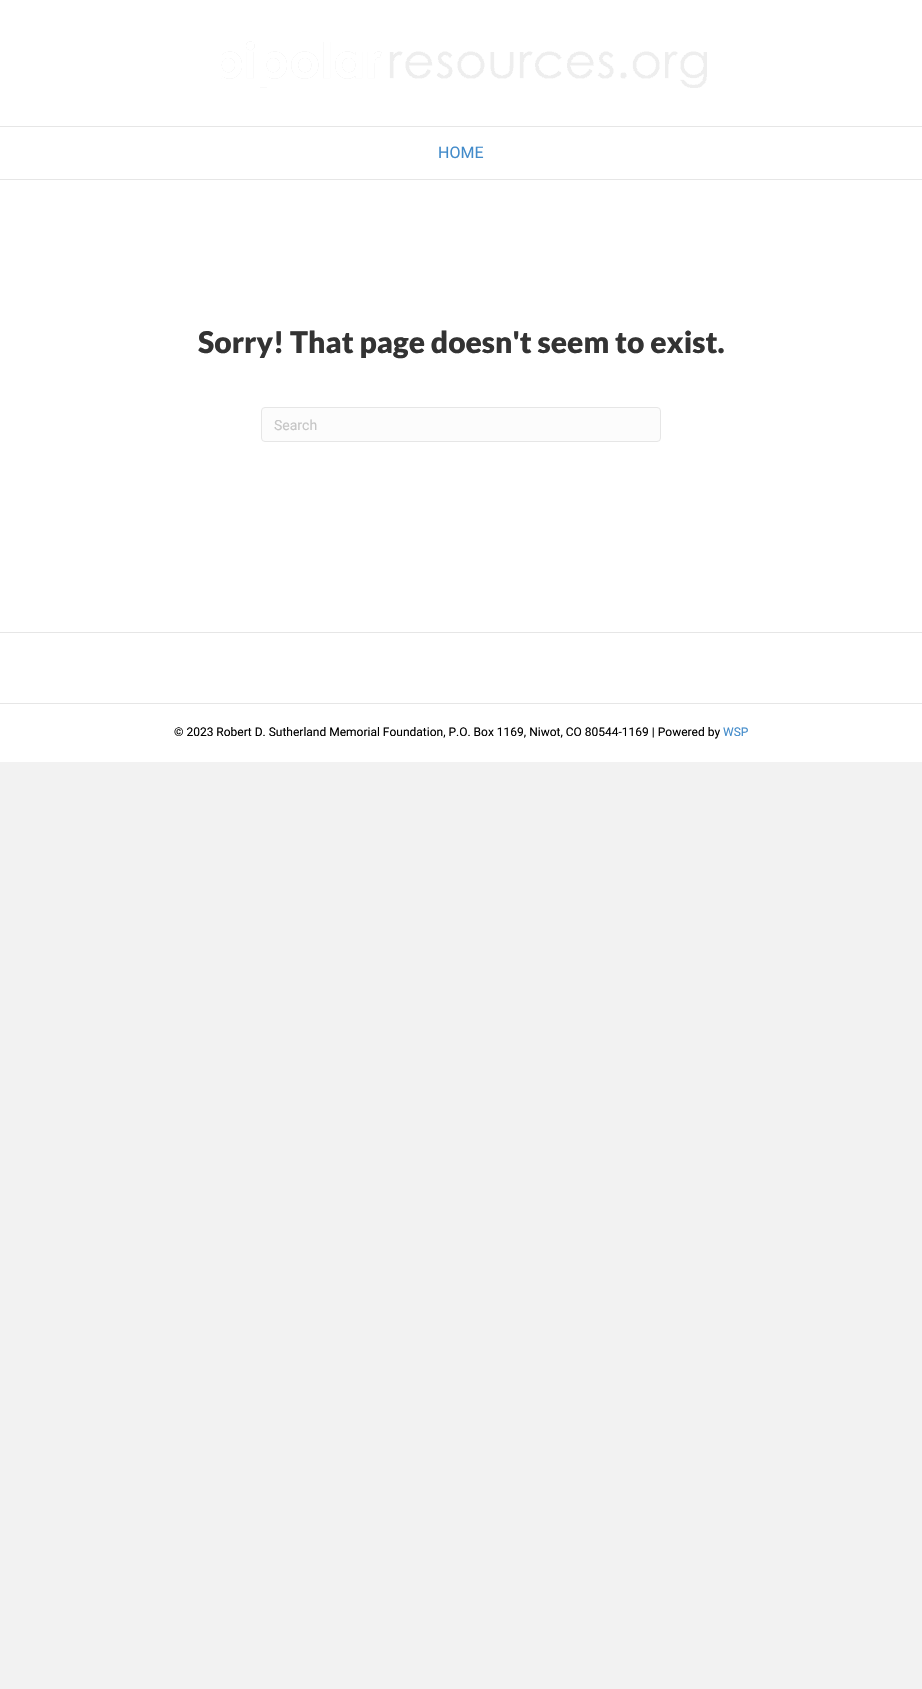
void draw(SkCanvas* canvas) {
    SkPaint paint;
    paint.setAntiAlias(true);
    canvas->clear(0xFFF2F2F2);
    paint.setColor(0xFFFFFFFF);
    canvas->drawRect(SkRect::MakeXYWH(0, 0, 922, 179), paint);
    canvas->drawImageRect(SkImages::DeferredFromEncodedData(SkData::MakeFromFileName("img1.png")), SkRect::MakeXYWH(221, 41, 486, 47), SkSamplingOptions());
    paint.setColor(0xFFE6E6E6);
    canvas->drawRect(SkRect::MakeXYWH(0, 126, 922, 1), paint);
    canvas->drawRect(SkRect::MakeXYWH(0, 179, 922, 1), paint);
    SkFont font1(fontMgr->matchFamilyStyle("Roboto", SkFontStyle::Normal()), 16);
    font1.setSubpixel(true);
    paint.setColor(0xFF428BCA);
    canvas->drawString("HOME", 438, 158, font1, paint);
    paint.setColor(0xFFFFFFFF);
    canvas->drawRect(SkRect::MakeXYWH(0, 180, 922, 452), paint);
    SkFont font2(fontMgr->matchFamilyStyle("Lato", SkFontStyle(900, SkFontStyle::kNormal_Width, SkFontStyle::kUpright_Slant)), 30);
    font2.setSubpixel(true);
    paint.setColor(0xFF333333);
    canvas->drawString("Sorry! That page doesn't seem to exist.", 198, 353, font2, paint);
    paint.setColor(0xFFFCFCFC);
    canvas->drawRoundRect(SkRect::MakeXYWH(261.5f, 407.5f, 399, 34), 3.5f, 3.5f, paint);
    paint.setStyle(SkPaint::kStroke_Style);
    paint.setStrokeWidth(1);
    paint.setColor(0xFFE6E6E6);
    canvas->drawRoundRect(SkRect::MakeXYWH(261.5f, 407.5f, 399, 34), 3.5f, 3.5f, paint);
    SkFont font3(fontMgr->matchFamilyStyle("Roboto", SkFontStyle::Normal()), 14);
    font3.setSubpixel(true);
    paint.setStyle(SkPaint::kFill_Style);
    paint.setColor(0xFFC6C6C6);
    canvas->drawString("Search", 274, 430, font3, paint);
    paint.setColor(0xFFFFFFFF);
    canvas->drawRect(SkRect::MakeXYWH(0, 633, 922, 70), paint);
    paint.setColor(0xFFE6E6E6);
    canvas->drawRect(SkRect::MakeXYWH(0, 632, 922, 1), paint);
    paint.setColor(0xFFFFFFFF);
    canvas->drawRect(SkRect::MakeXYWH(0, 704, 922, 58), paint);
    paint.setColor(0xFFE6E6E6);
    canvas->drawRect(SkRect::MakeXYWH(0, 703, 922, 1), paint);
    SkFont font4(fontMgr->matchFamilyStyle("Roboto", SkFontStyle::Normal()), 12);
    font4.setSubpixel(true);
    paint.setColor(0xFF000000);
    canvas->drawString("© 2023 Robert D. Sutherland Memorial Foundation, P.O. Box 1169, Niwot, CO 80544-1169 | Powered by", 174, 736, font4, paint);
    paint.setColor(0xFF428BCA);
    canvas->drawString("WSP", 723, 736, font4, paint);
}
